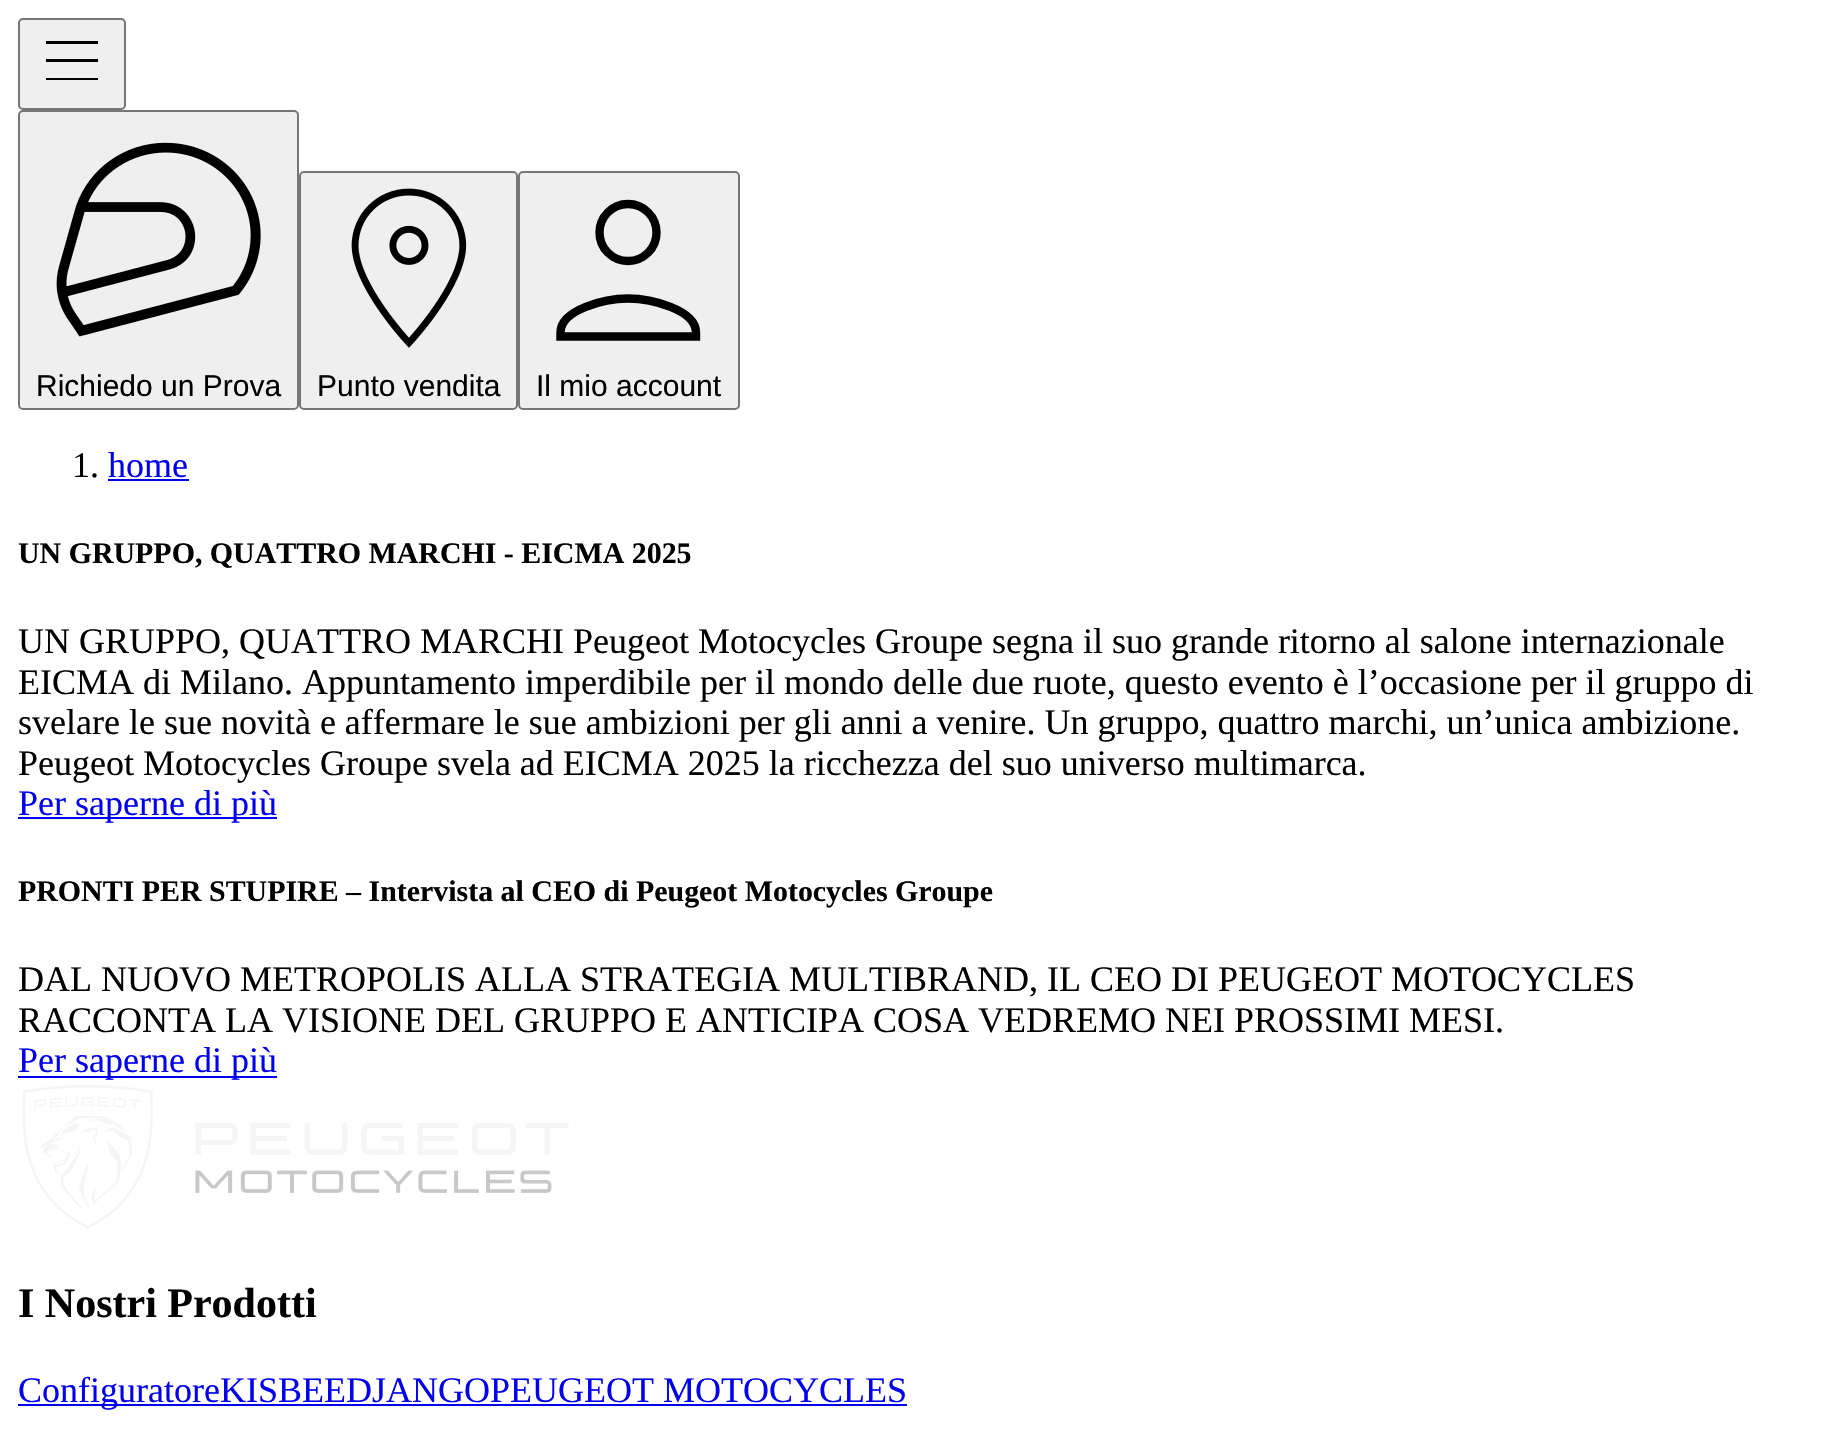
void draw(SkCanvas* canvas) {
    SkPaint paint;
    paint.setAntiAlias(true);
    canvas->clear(0xFFFFFFFF);
    paint.setColor(0xFFEFEFEF);
    canvas->drawRoundRect(SkRect::MakeXYWH(19, 19, 106, 90), 4, 4, paint);
    paint.setStyle(SkPaint::kStroke_Style);
    paint.setStrokeWidth(2);
    paint.setColor(0xFF767676);
    canvas->drawRoundRect(SkRect::MakeXYWH(19, 19, 106, 90), 4, 4, paint);
    paint.setStyle(SkPaint::kFill_Style);
    paint.setColor(0xFF000000);
    canvas->drawPath(SkPathBuilder().moveTo(98, 44).lineTo(46, 44).lineTo(46, 41).lineTo(98, 41).close().moveTo(98, 62).lineTo(46, 62).lineTo(46, 59).lineTo(98, 59).close().moveTo(98, 80).lineTo(46, 80).lineTo(46, 78).lineTo(98, 78).close().detach(), paint);
    paint.setColor(0xFFEFEFEF);
    canvas->drawRoundRect(SkRect::MakeXYWH(19, 111, 279, 298), 4, 4, paint);
    paint.setStyle(SkPaint::kStroke_Style);
    paint.setColor(0xFF767676);
    canvas->drawRoundRect(SkRect::MakeXYWH(19, 111, 279, 298), 4, 4, paint);
    canvas->drawImageRect(SkImages::DeferredFromEncodedData(SkData::MakeFromFileName("img1.png")), SkRect::MakeXYWH(56, 142, 205, 195), SkSamplingOptions());
    SkFont font1(fontMgr->matchFamilyStyle("Liberation Sans", SkFontStyle::Normal()), 30);
    font1.setSubpixel(true);
    paint.setStyle(SkPaint::kFill_Style);
    paint.setColor(0xFF000000);
    canvas->drawString("Richiedo un Prova", 36, 396, font1, paint);
    paint.setColor(0xFFEFEFEF);
    canvas->drawRoundRect(SkRect::MakeXYWH(300, 172, 217, 237), 4, 4, paint);
    paint.setStyle(SkPaint::kStroke_Style);
    paint.setColor(0xFF767676);
    canvas->drawRoundRect(SkRect::MakeXYWH(300, 172, 217, 237), 4, 4, paint);
    canvas->drawImageRect(SkImages::DeferredFromEncodedData(SkData::MakeFromFileName("img2.png")), SkRect::MakeXYWH(351, 188, 116, 160), SkSamplingOptions());
    paint.setStyle(SkPaint::kFill_Style);
    paint.setColor(0xFF000000);
    canvas->drawString("Punto vendita", 317, 396, font1, paint);
    paint.setColor(0xFFEFEFEF);
    canvas->drawRoundRect(SkRect::MakeXYWH(519, 172, 220, 237), 4, 4, paint);
    paint.setStyle(SkPaint::kStroke_Style);
    paint.setColor(0xFF767676);
    canvas->drawRoundRect(SkRect::MakeXYWH(519, 172, 220, 237), 4, 4, paint);
    paint.setStrokeWidth(8.4f);
    paint.setColor(0xFF000000);
    canvas->drawCircle(628, 232.5f, 28.5f, paint);
    canvas->drawPath(SkPathBuilder().moveTo(628, 298.5f).cubicTo(605.5f, 298.5f, 560.5f, 309.5f, 560.5f, 332.5f).lineTo(560.5f, 336.5f).lineTo(696, 336.5f).lineTo(696, 332.5f).cubicTo(696, 309.5f, 650.5f, 298.5f, 628, 298.5f).detach(), paint);
    paint.setStyle(SkPaint::kFill_Style);
    canvas->drawString("Il mio account", 536, 396, font1, paint);
    SkFont font2(fontMgr->matchFamilyStyle("Liberation Serif", SkFontStyle::Normal()), 36);
    font2.setSubpixel(true);
    canvas->drawString("1.", 72, 477, font2, paint);
    paint.setColor(0xFF0000EE);
    canvas->drawString("home", 108, 477, font2, paint);
    canvas->drawRect(SkRect::MakeXYWH(108, 479, 81, 2), paint);
    SkFont font3(fontMgr->matchFamilyStyle("Liberation Serif", SkFontStyle::Bold()), 29.9f);
    font3.setSubpixel(true);
    paint.setColor(0xFF000000);
    canvas->drawString("UN GRUPPO, QUATTRO MARCHI - EICMA 2025", 18, 563, font3, paint);
    canvas->drawString("UN GRUPPO, QUATTRO MARCHI Peugeot Motocycles Groupe segna il suo grande ritorno al salone internazionale", 18, 653, font2, paint);
    canvas->drawString("EICMA di Milano. Appuntamento imperdibile per il mondo delle due ruote, questo evento è l’occasione per il gruppo di", 18, 694, font2, paint);
    canvas->drawString("svelare le sue novità e affermare le sue ambizioni per gli anni a venire. Un gruppo, quattro marchi, un’unica ambizione.", 18, 734, font2, paint);
    canvas->drawString("Peugeot Motocycles Groupe svela ad EICMA 2025 la ricchezza del suo universo multimarca.", 18, 775, font2, paint);
    paint.setColor(0xFF0000EE);
    canvas->drawRect(SkRect::MakeXYWH(18, 817, 259, 2), paint);
    canvas->drawString("Per saperne di più", 18, 815, font2, paint);
    paint.setColor(0xFF000000);
    canvas->drawString("PRONTI PER STUPIRE – Intervista al CEO di Peugeot Motocycles Groupe", 18, 901, font3, paint);
    canvas->drawString("DAL NUOVO METROPOLIS ALLA STRATEGIA MULTIBRAND, IL CEO DI PEUGEOT MOTOCYCLES", 18, 991, font2, paint);
    canvas->drawString("RACCONTA LA VISIONE DEL GRUPPO E ANTICIPA COSA VEDREMO NEI PROSSIMI MESI.", 18, 1032, font2, paint);
    paint.setColor(0xFF0000EE);
    canvas->drawRect(SkRect::MakeXYWH(18, 1076, 259, 2), paint);
    canvas->drawString("Per saperne di più", 18, 1072, font2, paint);
    canvas->drawImageRect(SkImages::DeferredFromEncodedData(SkData::MakeFromFileName("img3.png")), SkRect::MakeXYWH(22, 1085, 547, 144), SkSamplingOptions());
    SkFont font4(fontMgr->matchFamilyStyle("Liberation Serif", SkFontStyle::Bold()), 42);
    font4.setSubpixel(true);
    paint.setColor(0xFF000000);
    canvas->drawString("I Nostri Prodotti", 18, 1317, font4, paint);
    paint.setColor(0xFF0000EE);
    canvas->drawRect(SkRect::MakeXYWH(18, 1404, 889, 2), paint);
    canvas->drawString("ConfiguratoreKISBEEDJANGOPEUGEOT MOTOCYCLES", 18, 1402, font2, paint);
}
